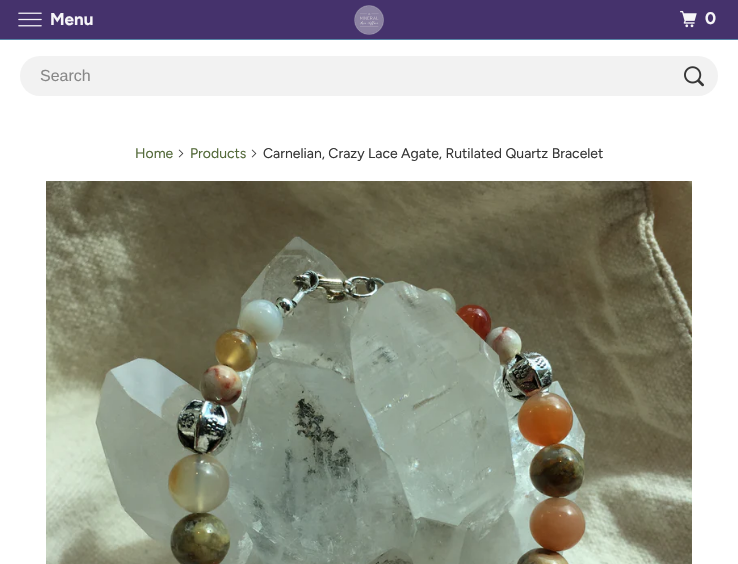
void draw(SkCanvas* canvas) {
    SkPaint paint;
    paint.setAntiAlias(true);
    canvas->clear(0xFF45326C);
    paint.setColor(0xFF5784A7);
    canvas->drawRect(SkRect::MakeXYWH(0, 39, 738, 1), paint);
    canvas->drawImageRect(SkImages::DeferredFromEncodedData(SkData::MakeFromFileName("img1.png")), SkRect::MakeXYWH(18, 12, 24, 15), SkSamplingOptions());
    SkFont font1(fontMgr->matchFamilyStyle("Figtree", SkFontStyle::Bold()), 17);
    font1.setSubpixel(true);
    paint.setColor(0xFFF6F5F8);
    canvas->drawString("Menu", 50, 25, font1, paint);
    canvas->drawImageRect(SkImages::DeferredFromEncodedData(SkData::MakeFromFileName("img2.png")), SkRect::MakeXYWH(354, 5, 30, 30), SkSamplingOptions());
    canvas->drawImageRect(SkImages::DeferredFromEncodedData(SkData::MakeFromFileName("img3.png")), SkRect::MakeXYWH(680, 10, 17, 18), SkSamplingOptions());
    canvas->drawString("0", 705, 24, font1, paint);
    paint.setColor(0xFFFFFFFF);
    canvas->drawRect(SkRect::MakeXYWH(0, 40, 738, 524), paint);
    paint.setColor(0xFFF2F2F2);
    canvas->drawRoundRect(SkRect::MakeXYWH(20, 56, 698, 40), 20, 20, paint);
    SkFont font2(fontMgr->matchFamilyStyle("Liberation Sans", SkFontStyle::Normal()), 16);
    font2.setSubpixel(true);
    paint.setColor(0xFF888888);
    canvas->drawString("Search", 40, 81, font2, paint);
    canvas->drawImageRect(SkImages::DeferredFromEncodedData(SkData::MakeFromFileName("img4.png")), SkRect::MakeXYWH(684, 66, 20, 21), SkSamplingOptions());
    SkFont font3(fontMgr->matchFamilyStyle("Figtree", SkFontStyle::Normal()), 14);
    font3.setSubpixel(true);
    paint.setColor(0xFF546A3A);
    canvas->drawString("Home", 135, 158, font3, paint);
    canvas->drawImageRect(SkImages::DeferredFromEncodedData(SkData::MakeFromFileName("img5.png")), SkRect::MakeXYWH(178, 149, 6, 9), SkSamplingOptions());
    canvas->drawString("Products", 190, 158, font3, paint);
    canvas->drawImageRect(SkImages::DeferredFromEncodedData(SkData::MakeFromFileName("img5.png")), SkRect::MakeXYWH(251, 149, 6, 9), SkSamplingOptions());
    paint.setColor(0xFF363636);
    canvas->drawString("Carnelian, Crazy Lace Agate, Rutilated Quartz Bracelet", 263, 158, font3, paint);
    canvas->drawImageRect(SkImages::DeferredFromEncodedData(SkData::MakeFromFileName("img6.png")), SkRect::MakeXYWH(46, 181, 646, 383), SkSamplingOptions());
}
